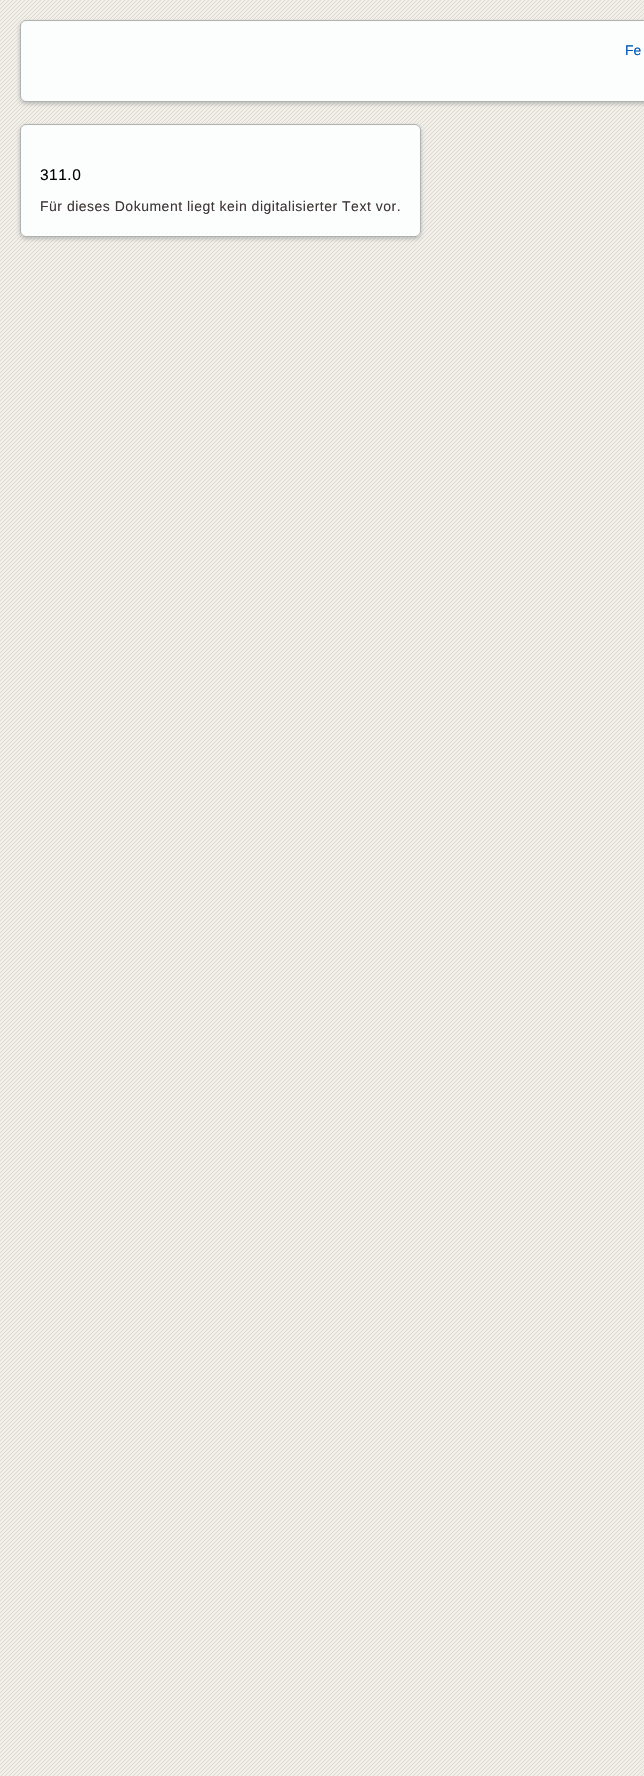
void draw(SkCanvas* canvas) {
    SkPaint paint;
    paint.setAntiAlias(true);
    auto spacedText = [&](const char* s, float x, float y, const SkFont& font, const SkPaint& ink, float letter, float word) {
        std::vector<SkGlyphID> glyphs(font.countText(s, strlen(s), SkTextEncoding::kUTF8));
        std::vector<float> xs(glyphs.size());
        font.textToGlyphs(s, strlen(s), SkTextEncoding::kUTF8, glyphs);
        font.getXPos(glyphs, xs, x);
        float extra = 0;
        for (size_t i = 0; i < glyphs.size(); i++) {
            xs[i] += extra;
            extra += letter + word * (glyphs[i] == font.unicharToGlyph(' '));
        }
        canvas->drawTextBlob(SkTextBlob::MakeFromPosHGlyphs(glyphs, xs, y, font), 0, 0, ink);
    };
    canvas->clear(0xFFFFFFFF);
    canvas->drawImageRect(SkImages::DeferredFromEncodedData(SkData::MakeFromFileName("img1.png")), SkRect::MakeXYWH(0, 0, 644, 1776), SkSamplingOptions());
    paint.setColor(0x4D3B454F);
    paint.setMaskFilter(SkMaskFilter::MakeBlur(kNormal_SkBlurStyle, 2));
    canvas->drawRoundRect(SkRect::MakeXYWH(20, 22, 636, 82), 6, 6, paint);
    paint.setMaskFilter(nullptr);
    paint.setColor(0xFFFCFEFE);
    canvas->drawRoundRect(SkRect::MakeXYWH(20, 20, 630, 82), 6, 6, paint);
    paint.setStyle(SkPaint::kStroke_Style);
    paint.setStrokeWidth(1);
    paint.setColor(0x4D000000);
    canvas->drawRoundRect(SkRect::MakeXYWH(20.5f, 20.5f, 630, 81), 5.5f, 5.5f, paint);
    SkFont font1(fontMgr->matchFamilyStyle("Liberation Sans", SkFontStyle::Normal()), 14);
    font1.setSubpixel(true);
    paint.setStyle(SkPaint::kFill_Style);
    paint.setColor(0xFF0057B8);
    canvas->drawString("Fe", 625, 55, font1, paint);
    paint.setColor(0x4D3B454F);
    paint.setMaskFilter(SkMaskFilter::MakeBlur(kNormal_SkBlurStyle, 2));
    canvas->drawRoundRect(SkRect::MakeXYWH(20, 126, 401, 113), 6, 6, paint);
    paint.setMaskFilter(nullptr);
    paint.setColor(0xFFFCFEFE);
    canvas->drawRoundRect(SkRect::MakeXYWH(20, 124, 401, 113), 6, 6, paint);
    paint.setStyle(SkPaint::kStroke_Style);
    paint.setColor(0x4D000000);
    canvas->drawRoundRect(SkRect::MakeXYWH(20.5f, 124.5f, 400, 112), 5.5f, 5.5f, paint);
    SkFont font2(fontMgr->matchFamilyStyle("Liberation Sans", SkFontStyle::Normal()), 15.5f);
    font2.setSubpixel(true);
    paint.setStyle(SkPaint::kFill_Style);
    paint.setColor(0xFF000000);
    spacedText("311.0", 40, 180, font2, paint, 0.5f, 0);
    paint.setColor(0xFF403636);
    spacedText("Für dieses Dokument liegt kein digitalisierter Text vor.", 40, 211, font1, paint, 0.5f, 0);
}
